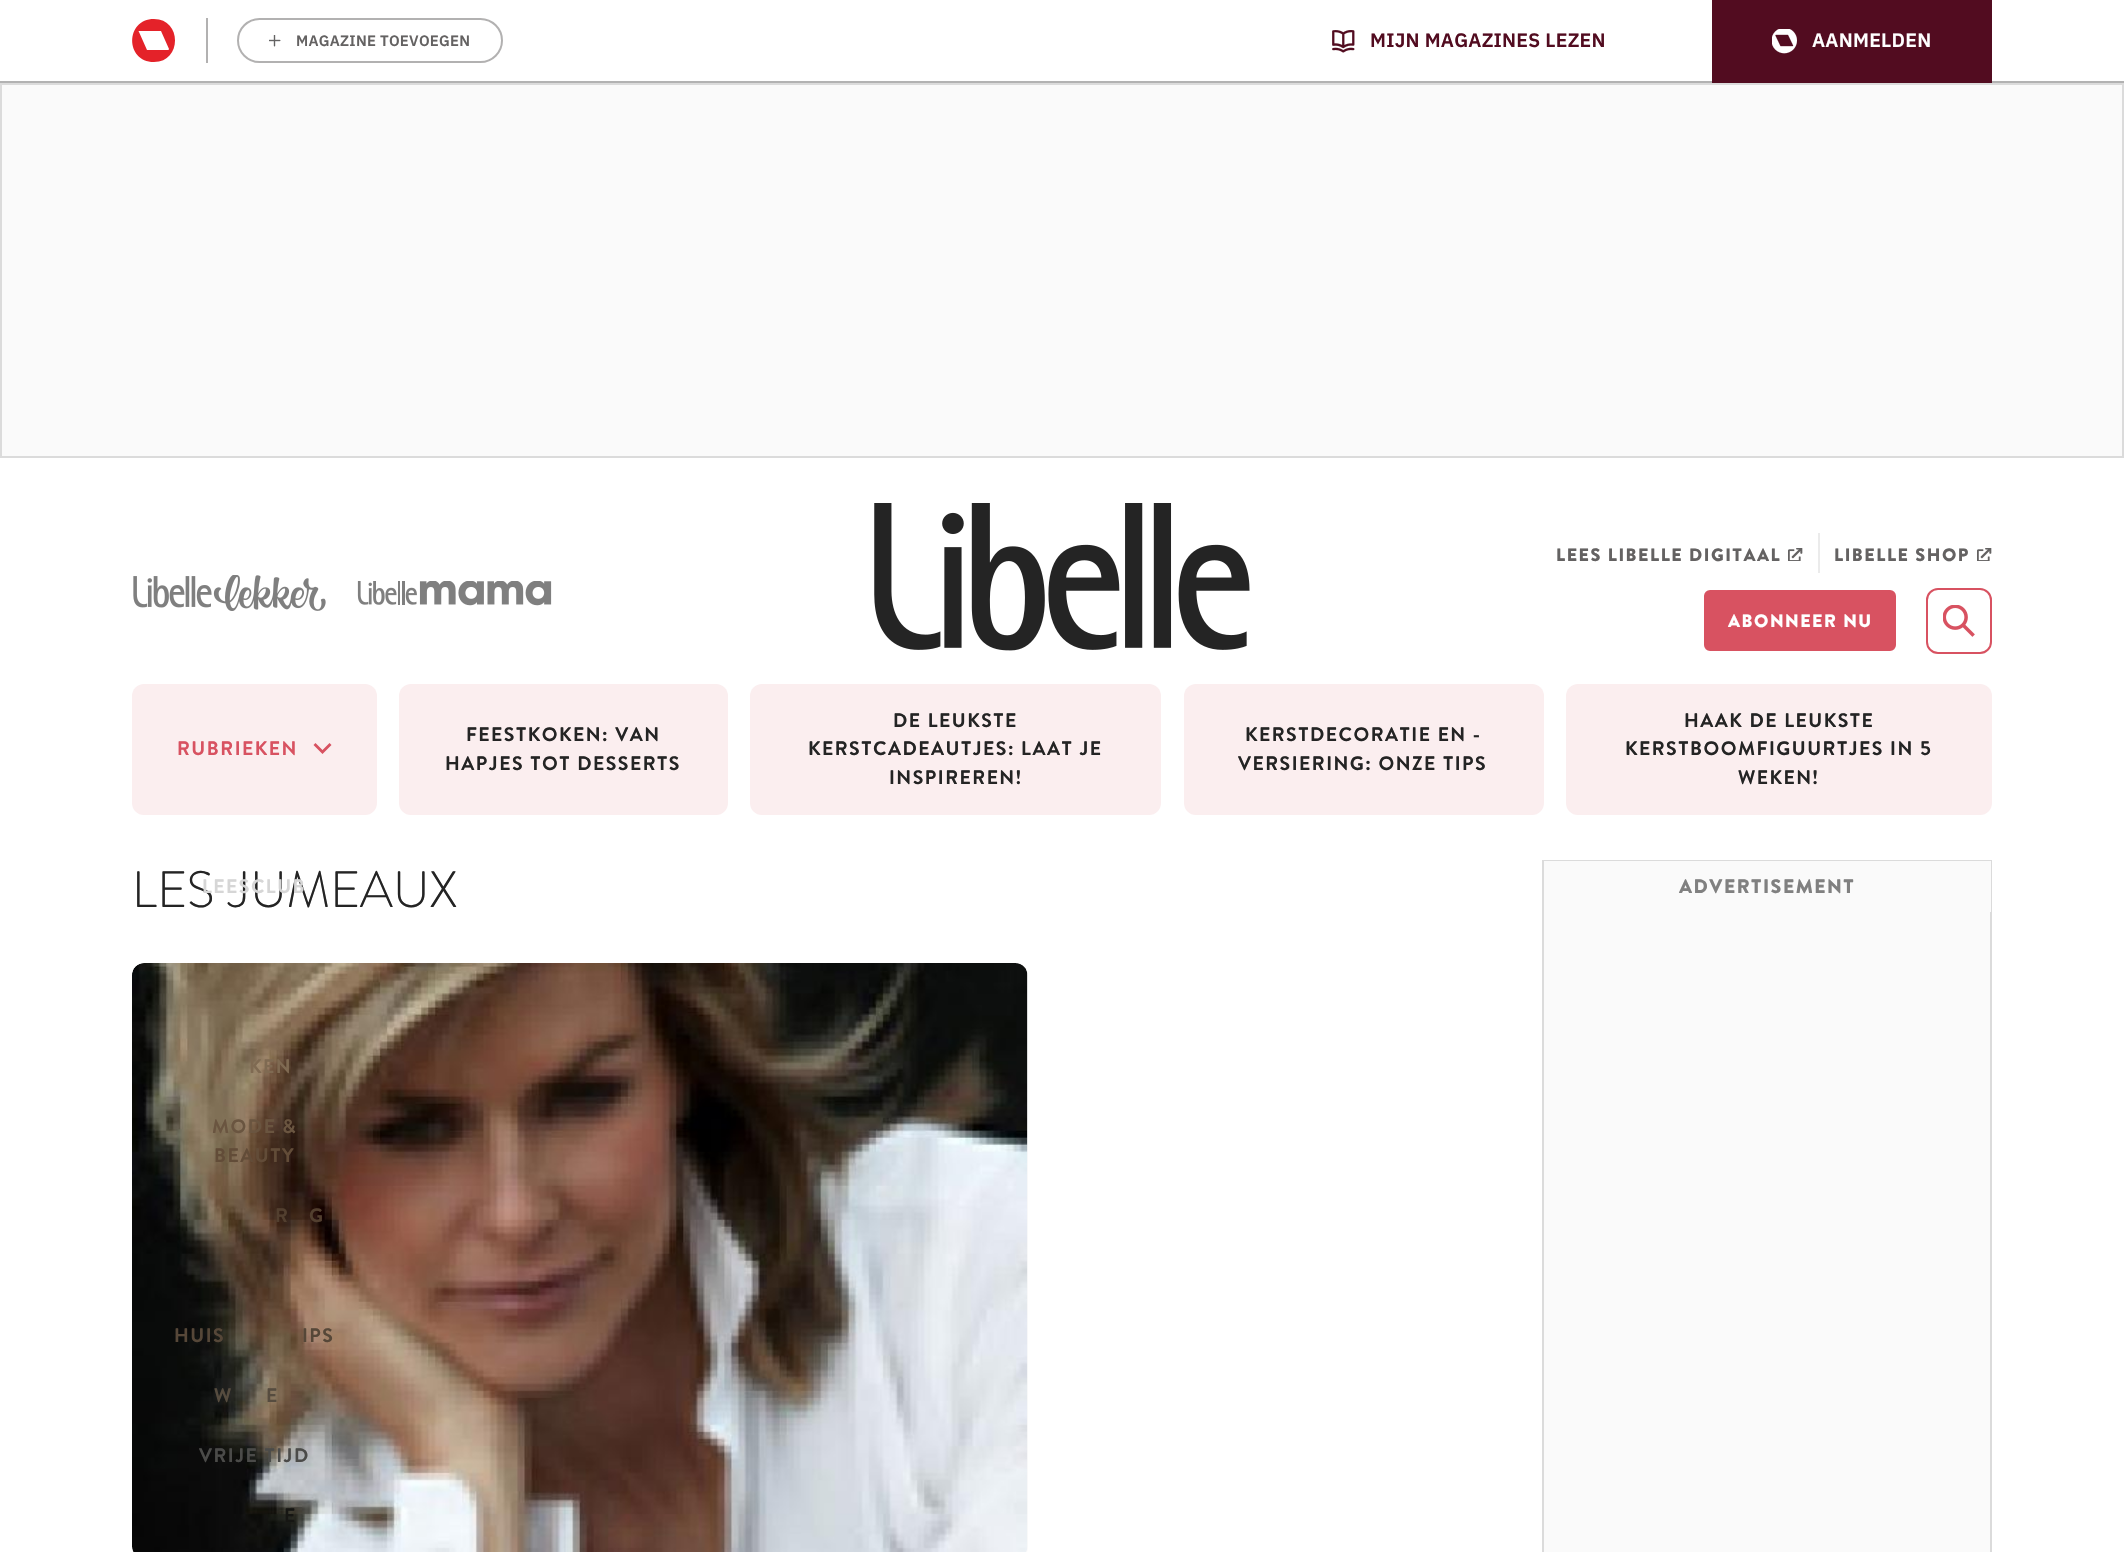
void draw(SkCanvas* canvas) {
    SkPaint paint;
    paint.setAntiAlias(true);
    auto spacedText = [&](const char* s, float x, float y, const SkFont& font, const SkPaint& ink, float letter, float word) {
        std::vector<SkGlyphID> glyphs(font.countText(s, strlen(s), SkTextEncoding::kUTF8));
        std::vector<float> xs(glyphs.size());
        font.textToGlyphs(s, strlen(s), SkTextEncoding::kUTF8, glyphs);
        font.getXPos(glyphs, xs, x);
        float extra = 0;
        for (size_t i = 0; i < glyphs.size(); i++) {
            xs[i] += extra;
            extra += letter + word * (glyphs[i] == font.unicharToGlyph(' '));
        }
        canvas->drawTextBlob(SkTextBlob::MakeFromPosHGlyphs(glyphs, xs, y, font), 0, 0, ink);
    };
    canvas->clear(0xFFFFFFFF);
    paint.setColor(0xFFB2B2B2);
    canvas->drawRect(SkRect::MakeXYWH(0, 81, 2124, 2), paint);
    paint.setColor(0xFFB2B1B1);
    canvas->drawRect(SkRect::MakeXYWH(206, 18, 2, 45), paint);
    paint.setColor(0xFFE42229);
    canvas->drawPath(SkPathBuilder(SkPathFillType::kEvenOdd).moveTo(168, 50).lineTo(148, 50).lineTo(147, 50).lineTo(139, 32).cubicTo(138, 31, 139, 31, 139, 31).lineTo(160, 31).lineTo(161, 31).lineTo(169, 49).cubicTo(169, 49, 169, 50, 168, 50).close().moveTo(154, 19).cubicTo(125, 19, 125, 62, 154, 62).cubicTo(182, 62, 182, 19, 154, 19).close().detach(), paint);
    paint.setStyle(SkPaint::kStroke_Style);
    paint.setStrokeWidth(2);
    paint.setColor(0xFFB2B1B1);
    canvas->drawRoundRect(SkRect::MakeXYWH(238, 19, 264, 43), 21.5f, 21.5f, paint);
    canvas->drawImageRect(SkImages::DeferredFromEncodedData(SkData::MakeFromFileName("img1.png")), SkRect::MakeXYWH(269, 35, 12, 12), SkSamplingOptions());
    SkFont font1(fontMgr->matchFamilyStyle("IBM Plex Sans", SkFontStyle(600, SkFontStyle::kNormal_Width, SkFontStyle::kUpright_Slant)), 15);
    font1.setSubpixel(true);
    paint.setStyle(SkPaint::kFill_Style);
    paint.setColor(0xFF646262);
    spacedText("MAGAZINE TOEVOEGEN", 296, 46, font1, paint, 0.25f, 0);
    canvas->drawImageRect(SkImages::DeferredFromEncodedData(SkData::MakeFromFileName("img2.png")), SkRect::MakeXYWH(1332, 30, 23, 23), SkSamplingOptions());
    SkFont font2(fontMgr->matchFamilyStyle("IBM Plex Sans", SkFontStyle(600, SkFontStyle::kNormal_Width, SkFontStyle::kUpright_Slant)), 19.5f);
    font2.setSubpixel(true);
    paint.setColor(0xFF520C20);
    spacedText("MIJN MAGAZINES LEZEN", 1370, 47, font2, paint, 0.25f, 0);
    canvas->drawRect(SkRect::MakeXYWH(1712, 0, 280, 83), paint);
    canvas->drawImageRect(SkImages::DeferredFromEncodedData(SkData::MakeFromFileName("img3.png")), SkRect::MakeXYWH(1772, 29, 25, 25), SkSamplingOptions());
    paint.setColor(0xFFFFFFFF);
    spacedText("AANMELDEN", 1812, 47, font2, paint, 0.25f, 0);
    paint.setColor(0xFFFAFAFA);
    canvas->drawRect(SkRect::MakeXYWH(1, 84, 2122, 373), paint);
    paint.setStyle(SkPaint::kStroke_Style);
    paint.setColor(0xFFDBDBDB);
    canvas->drawRect(SkRect::MakeXYWH(1, 84, 2122, 373), paint);
    canvas->drawImageRect(SkImages::DeferredFromEncodedData(SkData::MakeFromFileName("img4.png")), SkRect::MakeXYWH(133, 575, 193, 36), SkSamplingOptions());
    canvas->drawImageRect(SkImages::DeferredFromEncodedData(SkData::MakeFromFileName("img5.png")), SkRect::MakeXYWH(357, 581, 195, 25), SkSamplingOptions());
    canvas->drawImageRect(SkImages::DeferredFromEncodedData(SkData::MakeFromFileName("img6.png")), SkRect::MakeXYWH(874, 503, 376, 148), SkSamplingOptions());
    SkFont font3(fontMgr->matchFamilyStyle("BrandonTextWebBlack", SkFontStyle(900, SkFontStyle::kNormal_Width, SkFontStyle::kUpright_Slant)), 18);
    font3.setSubpixel(true);
    paint.setStyle(SkPaint::kFill_Style);
    paint.setColor(0xFF646262);
    spacedText("LEES LIBELLE DIGITAAL", 1556, 561, font3, paint, 1.5f, 0);
    canvas->drawImageRect(SkImages::DeferredFromEncodedData(SkData::MakeFromFileName("img7.png")), SkRect::MakeXYWH(1788, 548, 15, 13), SkSamplingOptions());
    paint.setColor(0xFFEBEBEB);
    canvas->drawRect(SkRect::MakeXYWH(1818, 533, 2, 40), paint);
    paint.setColor(0xFF646262);
    spacedText("LIBELLE SHOP", 1834, 561, font3, paint, 1.5f, 0);
    canvas->drawImageRect(SkImages::DeferredFromEncodedData(SkData::MakeFromFileName("img7.png")), SkRect::MakeXYWH(1977, 548, 15, 13), SkSamplingOptions());
    paint.setColor(0xFFD85261);
    canvas->drawRoundRect(SkRect::MakeXYWH(1705, 591, 190, 59), 5, 5, paint);
    paint.setStyle(SkPaint::kStroke_Style);
    canvas->drawRoundRect(SkRect::MakeXYWH(1705, 591, 190, 59), 5, 5, paint);
    paint.setStyle(SkPaint::kFill_Style);
    paint.setColor(0xFFFFFFFF);
    spacedText("ABONNEER NU", 1728, 627, font3, paint, 1.5f, 0);
    paint.setStyle(SkPaint::kStroke_Style);
    paint.setColor(0xFFD85261);
    canvas->drawRoundRect(SkRect::MakeXYWH(1927, 589, 64, 64), 11, 11, paint);
    canvas->drawImageRect(SkImages::DeferredFromEncodedData(SkData::MakeFromFileName("img8.png")), SkRect::MakeXYWH(1943, 605, 32, 32), SkSamplingOptions());
    paint.setStyle(SkPaint::kFill_Style);
    paint.setColor(0xFFFBEEEF);
    canvas->drawRoundRect(SkRect::MakeXYWH(132, 684, 245, 131), 12, 12, paint);
    SkFont font4(fontMgr->matchFamilyStyle("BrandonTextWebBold", SkFontStyle::Bold()), 19.5f);
    font4.setSubpixel(true);
    paint.setColor(0xFFD85261);
    spacedText("RUBRIEKEN", 177, 755, font4, paint, 1.5f, 0);
    canvas->drawPath(SkPathBuilder().moveTo(331.5f, 745).lineTo(329.5f, 743).lineTo(322.5f, 750).lineTo(315.5f, 743).lineTo(313.5f, 745).lineTo(322.5f, 754).close().detach(), paint);
    SkFont font5(fontMgr->matchFamilyStyle("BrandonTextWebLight", SkFontStyle(300, SkFontStyle::kNormal_Width, SkFontStyle::kUpright_Slant)), 51);
    font5.setSubpixel(true);
    paint.setColor(0xFF242424);
    canvas->drawString("LES JUMEAUX", 132, 907, font5, paint);
    paint.setColor(0xFFD6D6D6);
    spacedText("LEESCLUB", 202, 893, font4, paint, 1.5f, 0);
    paint.setColor(0xFFFAFAFA);
    canvas->drawRoundRect(SkRect::MakeXYWH(132, 963, 896, 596), 12, 12, paint);
    canvas->drawImageRect(SkImages::DeferredFromEncodedData(SkData::MakeFromFileName("img9.png")), SkRect::MakeXYWH(132, 963, 896, 589), SkSamplingOptions());
    paint.setColor(0xFF7F6A52);
    spacedText("KEN", 249, 1073, font4, paint, 1.5f, 0);
    paint.setColor(0xFF6A5540);
    spacedText("MODE &", 212, 1133, font4, paint, 1.5f, 0);
    paint.setColor(0xFF624C38);
    spacedText("BEAUTY", 214, 1162, font4, paint, 1.5f, 0);
    paint.setColor(0xFF523F2F);
    spacedText("R", 275, 1222, font4, paint, 1.5f, 0);
    spacedText("G", 309, 1222, font4, paint, 1.5f, 0);
    paint.setColor(0xFF564738);
    spacedText("HUIS", 174, 1342, font4, paint, 1.5f, 0);
    spacedText("IPS", 302, 1342, font4, paint, 1.5f, 0);
    paint.setColor(0xFF564C3F);
    spacedText("W", 214, 1402, font4, paint, 1.5f, 0);
    spacedText("E", 266, 1402, font4, paint, 1.5f, 0);
    paint.setColor(0xFF4B4B49);
    spacedText("VRIJE TIJD", 199, 1462, font4, paint, 1.5f, 0);
    paint.setColor(0xFF161613);
    spacedText("E", 284, 1522, font4, paint, 1.5f, 0);
    paint.setColor(0xFFFBEEEF);
    canvas->drawRoundRect(SkRect::MakeXYWH(399, 684, 329, 131), 12, 12, paint);
    paint.setColor(0xFF242424);
    spacedText("FEESTKOKEN: VAN", 466, 741, font4, paint, 1.5f, 0);
    spacedText("HAPJES TOT DESSERTS", 445, 770, font4, paint, 1.5f, 0);
    paint.setColor(0xFFFBEEEF);
    canvas->drawRoundRect(SkRect::MakeXYWH(750, 684, 411, 131), 12, 12, paint);
    paint.setColor(0xFF242424);
    spacedText("DE LEUKSTE", 893, 727, font4, paint, 1.5f, 0);
    spacedText("KERSTCADEAUTJES: LAAT JE", 808, 755, font4, paint, 1.5f, 0);
    spacedText("INSPIREREN!", 889, 784, font4, paint, 1.5f, 0);
    paint.setColor(0xFFFBEEEF);
    canvas->drawRoundRect(SkRect::MakeXYWH(1184, 684, 360, 131), 12, 12, paint);
    paint.setColor(0xFF242424);
    spacedText("KERSTDECORATIE EN -", 1245, 741, font4, paint, 1.5f, 0);
    spacedText("VERSIERING: ONZE TIPS", 1238, 770, font4, paint, 1.5f, 0);
    paint.setColor(0xFFFBEEEF);
    canvas->drawRoundRect(SkRect::MakeXYWH(1566, 684, 426, 131), 12, 12, paint);
    paint.setColor(0xFF242424);
    spacedText("HAAK DE LEUKSTE", 1684, 727, font4, paint, 1.5f, 0);
    spacedText("KERSTBOOMFIGUURTJES IN 5", 1625, 755, font4, paint, 1.5f, 0);
    spacedText("WEKEN!", 1738, 784, font4, paint, 1.5f, 0);
    paint.setColor(0xFFFAFAFA);
    canvas->drawRect(SkRect::MakeXYWH(1544, 912, 446, 640), paint);
    paint.setStyle(SkPaint::kStroke_Style);
    paint.setColor(0xFFDBDBDB);
    canvas->drawRect(SkRect::MakeXYWH(1543, 861, 448, 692), paint);
    paint.setStyle(SkPaint::kFill_Style);
    paint.setColor(0xFFFAFAFA);
    canvas->drawRect(SkRect::MakeXYWH(1544, 861, 447, 51), paint);
    SkFont font6(fontMgr->matchFamilyStyle("BrandonTextWebBlack", SkFontStyle(900, SkFontStyle::kNormal_Width, SkFontStyle::kUpright_Slant)), 19.5f);
    font6.setSubpixel(true);
    paint.setColor(0xFF808080);
    spacedText("ADVERTISEMENT", 1679, 893, font6, paint, 1.5f, 0);
}
